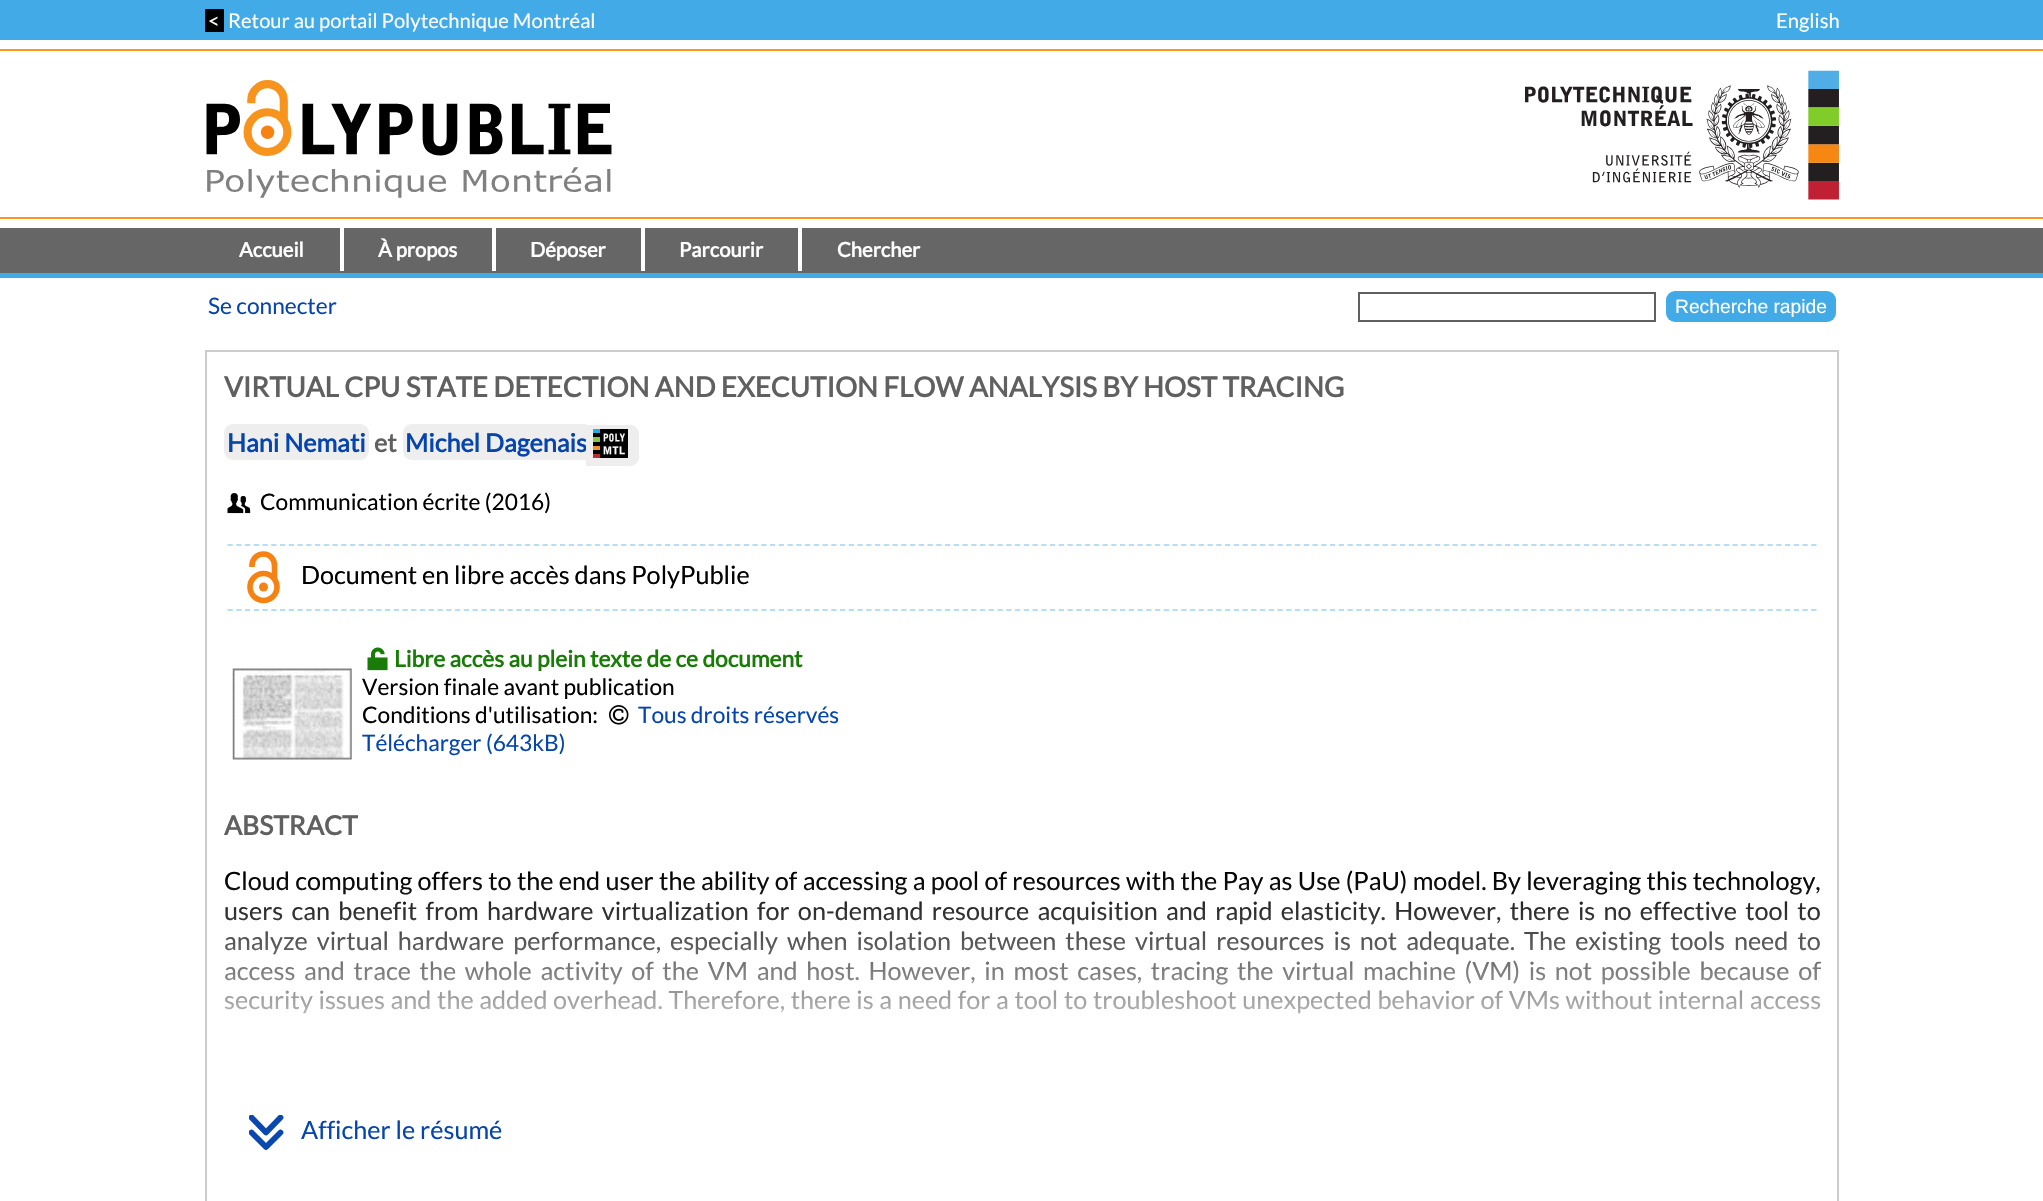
void draw(SkCanvas* canvas) {
    SkPaint paint;
    paint.setAntiAlias(true);
    auto spacedText = [&](const char* s, float x, float y, const SkFont& font, const SkPaint& ink, float letter, float word) {
        std::vector<SkGlyphID> glyphs(font.countText(s, strlen(s), SkTextEncoding::kUTF8));
        std::vector<float> xs(glyphs.size());
        font.textToGlyphs(s, strlen(s), SkTextEncoding::kUTF8, glyphs);
        font.getXPos(glyphs, xs, x);
        float extra = 0;
        for (size_t i = 0; i < glyphs.size(); i++) {
            xs[i] += extra;
            extra += letter + word * (glyphs[i] == font.unicharToGlyph(' '));
        }
        canvas->drawTextBlob(SkTextBlob::MakeFromPosHGlyphs(glyphs, xs, y, font), 0, 0, ink);
    };
    canvas->clear(0xFFFFFFFF);
    paint.setColor(0xFF42AAE7);
    canvas->drawRect(SkRect::MakeXYWH(0, 0, 2043, 40), paint);
    paint.setColor(0xFF000000);
    canvas->drawRect(SkRect::MakeXYWH(205, 9, 19, 23), paint);
    SkFont font1(fontMgr->matchFamilyStyle("Lato", SkFontStyle::Normal()), 20.2f);
    font1.setSubpixel(true);
    paint.setColor(0xFFFFFFFF);
    canvas->drawString("<", 208, 28, font1, paint);
    canvas->drawString("Retour au portail Polytechnique Montréal", 228, 28, font1, paint);
    canvas->drawString("English", 1776, 28, font1, paint);
    paint.setColor(0xFFFA961E);
    canvas->drawRect(SkRect::MakeXYWH(0, 49, 2043, 2), paint);
    canvas->drawRect(SkRect::MakeXYWH(0, 217, 2043, 2), paint);
    canvas->drawImageRect(SkImages::DeferredFromEncodedData(SkData::MakeFromFileName("img1.png")), SkRect::MakeXYWH(206, 80, 406, 118), SkSamplingOptions());
    canvas->drawImageRect(SkImages::DeferredFromEncodedData(SkData::MakeFromFileName("img2.png")), SkRect::MakeXYWH(1525, 70, 314, 130), SkSamplingOptions());
    paint.setColor(0xFF666666);
    canvas->drawRect(SkRect::MakeXYWH(0, 228, 2043, 45), paint);
    paint.setColor(0xFF42AAE7);
    canvas->drawRect(SkRect::MakeXYWH(0, 273, 2043, 5), paint);
    paint.setColor(0xFFFFFFFF);
    canvas->drawRect(SkRect::MakeXYWH(340, 228, 4, 43), paint);
    SkFont font2(fontMgr->matchFamilyStyle("Lato", SkFontStyle::Bold()), 20.2f);
    font2.setSubpixel(true);
    canvas->drawString("Accueil", 239, 257, font2, paint);
    canvas->drawRect(SkRect::MakeXYWH(492, 228, 4, 43), paint);
    canvas->drawString("À propos", 378, 257, font2, paint);
    canvas->drawRect(SkRect::MakeXYWH(641, 228, 4, 43), paint);
    canvas->drawString("Déposer", 530, 257, font2, paint);
    canvas->drawRect(SkRect::MakeXYWH(798, 228, 4, 43), paint);
    canvas->drawString("Parcourir", 679, 257, font2, paint);
    canvas->drawString("Chercher", 837, 257, font2, paint);
    SkFont font3(fontMgr->matchFamilyStyle("Lato", SkFontStyle::Normal()), 22.7f);
    font3.setSubpixel(true);
    paint.setColor(0xFF0645AD);
    canvas->drawString("Se connecter", 208, 314, font3, paint);
    paint.setStyle(SkPaint::kStroke_Style);
    paint.setStrokeWidth(2);
    paint.setColor(0xFF606060);
    canvas->drawRect(SkRect::MakeXYWH(1359, 293, 296, 28), paint);
    paint.setStyle(SkPaint::kFill_Style);
    paint.setColor(0xFF42AAE7);
    canvas->drawRoundRect(SkRect::MakeXYWH(1666, 291, 170, 31), 9, 9, paint);
    SkFont font4(fontMgr->matchFamilyStyle("Liberation Sans", SkFontStyle::Normal()), 19.25f);
    font4.setSubpixel(true);
    paint.setColor(0xFFFFFFFF);
    canvas->drawString("Recherche rapide", 1675, 313, font4, paint);
    paint.setStyle(SkPaint::kStroke_Style);
    paint.setColor(0xFFCCCCCC);
    canvas->drawRect(SkRect::MakeXYWH(206, 351, 1632, 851), paint);
    SkFont font5(fontMgr->matchFamilyStyle("Lato", SkFontStyle::Bold()), 27.7f);
    font5.setSubpixel(true);
    paint.setStyle(SkPaint::kFill_Style);
    paint.setColor(0xFF606060);
    canvas->drawString("VIRTUAL CPU STATE DETECTION AND EXECUTION FLOW ANALYSIS BY HOST TRACING", 224, 397, font5, paint);
    paint.setColor(0xFFEEEEEE);
    canvas->drawRoundRect(SkRect::MakeXYWH(224, 424, 145, 36), 9, 9, paint);
    SkFont font6(fontMgr->matchFamilyStyle("Lato", SkFontStyle::Bold()), 25.2f);
    font6.setSubpixel(true);
    paint.setColor(0xFF0645AD);
    canvas->drawString("Hani Nemati", 227, 452, font6, paint);
    paint.setColor(0xFF606060);
    canvas->drawString("et", 374, 452, font6, paint);
    paint.setColor(0xFFEEEEEE);
    canvas->drawPath(SkPathBuilder().moveTo(412, 424).lineTo(586, 424).lineTo(586, 460).lineTo(412, 460).cubicTo(407, 460, 403, 456, 403, 451).lineTo(403, 433).cubicTo(403, 428, 407, 424, 412, 424).close().detach(), paint);
    paint.setColor(0xFF0645AD);
    canvas->drawString("Michel Dagenais", 405, 452, font6, paint);
    paint.setColor(0xFFEEEEEE);
    canvas->drawPath(SkPathBuilder().moveTo(586, 425).lineTo(630, 425).cubicTo(635, 425, 639, 429, 639, 434).lineTo(639, 457).cubicTo(639, 462, 635, 466, 630, 466).lineTo(586, 466).close().detach(), paint);
    canvas->drawImageRect(SkImages::DeferredFromEncodedData(SkData::MakeFromFileName("img3.png")), SkRect::MakeXYWH(593, 429, 35, 29), SkSamplingOptions());
    canvas->drawImageRect(SkImages::DeferredFromEncodedData(SkData::MakeFromFileName("img4.png")), SkRect::MakeXYWH(227, 493, 24, 21), SkSamplingOptions());
    paint.setColor(0xFF000000);
    canvas->drawString("Communication écrite (2016)", 260, 510, font3, paint);
    paint.setStyle(SkPaint::kStroke_Style);
    paint.setStrokeWidth(1.8f);
    paint.setColor(0xFFB8DEF5);
    paint.setPathEffect(SkDashPathEffect::Make({{5.25f, 3.5f}}, 0));
    canvas->drawPath(SkPathBuilder().moveTo(227.5f, 545).lineTo(1816.5f, 545).detach(), paint);
    paint.setPathEffect(nullptr);
    paint.setPathEffect(SkDashPathEffect::Make({{5.25f, 3.5f}}, 0));
    canvas->drawPath(SkPathBuilder().moveTo(227.5f, 610).lineTo(1816.5f, 610).detach(), paint);
    paint.setPathEffect(nullptr);
    paint.setStrokeWidth(5.6f);
    paint.setColor(0xFFF68212);
    canvas->drawPath(SkPathBuilder().moveTo(252, 567).lineTo(252, 565.5f).cubicTo(252, 559, 257, 554, 263.5f, 554).cubicTo(269.5f, 554, 274.5f, 559, 274.5f, 565.5f).lineTo(274.5f, 579).detach(), paint);
    SkFont font7(fontMgr->matchFamilyStyle("Lato", SkFontStyle::Normal()), 25.2f);
    font7.setSubpixel(true);
    paint.setStyle(SkPaint::kFill_Style);
    paint.setColor(0xFF000000);
    canvas->drawString("Document en libre accès dans PolyPublie", 301, 584, font7, paint);
    paint.setStyle(SkPaint::kStroke_Style);
    paint.setColor(0xFFF68212);
    canvas->drawCircle(263.5f, 587, 13.5f, paint);
    paint.setStyle(SkPaint::kFill_Style);
    canvas->drawCircle(263.5f, 587, 4.5f, paint);
    canvas->drawImageRect(SkImages::DeferredFromEncodedData(SkData::MakeFromFileName("img5.png")), SkRect::MakeXYWH(232, 668, 120, 92), SkSamplingOptions());
    canvas->drawImageRect(SkImages::DeferredFromEncodedData(SkData::MakeFromFileName("img6.png")), SkRect::MakeXYWH(367, 647, 21, 24), SkSamplingOptions());
    SkFont font8(fontMgr->matchFamilyStyle("Lato", SkFontStyle::Bold()), 22.7f);
    font8.setSubpixel(true);
    paint.setColor(0xFF197C06);
    canvas->drawString("Libre accès au plein texte de ce document", 394, 667, font8, paint);
    paint.setColor(0xFF000000);
    canvas->drawString("Version finale avant publication", 362, 695, font3, paint);
    canvas->drawString("Conditions d'utilisation:", 362, 723, font3, paint);
    canvas->drawImageRect(SkImages::DeferredFromEncodedData(SkData::MakeFromFileName("img7.png")), SkRect::MakeXYWH(609, 705, 20, 20), SkSamplingOptions());
    paint.setColor(0xFF0645AD);
    canvas->drawString("Tous droits réservés", 638, 723, font3, paint);
    canvas->drawString("Télécharger (643kB)", 362, 751, font3, paint);
    SkFont font9(fontMgr->matchFamilyStyle("Lato", SkFontStyle::Bold()), 26.5f);
    font9.setSubpixel(true);
    paint.setColor(0xFF606060);
    canvas->drawString("ABSTRACT", 224, 835, font9, paint);
    paint.setColor(0xFF000000);
    spacedText("Cloud computing offers to the end user the ability of accessing a pool of resources with the Pay as Use (PaU) model. By leveraging this technology,", 224, 890, font7, paint, 0, 0.45f);
    spacedText("users can benefit from hardware virtualization for on-demand resource acquisition and rapid elasticity. However, there is no effective tool to", 224, 920, font7, paint, 0, 3.4f);
    spacedText("analyze virtual hardware performance, especially when isolation between these virtual resources is not adequate. The existing tools need to", 224, 950, font7, paint, 0, 4.1f);
    spacedText("access and trace the whole activity of the VM and host. However, in most cases, tracing the virtual machine (VM) is not possible because of", 224, 980, font7, paint, 0, 3.8f);
    spacedText("security issues and the added overhead. Therefore, there is a need for a tool to troubleshoot unexpected behavior of VMs without internal access", 224, 1009, font7, paint, 0, 0.75f);
    {
        const SkColor colors[] = {0x00FFFFFF, 0xFFFFFFFF};
        const float stops[] = {0, 0.75f};
        const SkPoint ends[] = {{1022, 875}, {1022, 1138}};
        paint.setShader(SkGradientShader::MakeLinear(ends, colors, stops, 2, SkTileMode::kClamp));
        paint.setAlpha(255);
    }
    canvas->drawRect(SkRect::MakeXYWH(224, 879, 1596, 135), paint);
    canvas->save();
    canvas->clipRect(SkRect::MakeXYWH(249, 1115, 35, 35));
    paint.setStyle(SkPaint::kStroke_Style);
    paint.setStrokeWidth(5.8f);
    paint.setStrokeCap(SkPaint::kRound_Cap);
    paint.setStrokeJoin(SkPaint::kRound_Join);
    paint.setShader(nullptr);
    paint.setColor(0xFF0A48AE);
    canvas->drawPath(SkPathBuilder().moveTo(280.5f, 1132.5f).lineTo(266, 1147).lineTo(251.5f, 1132.5f).moveTo(280.5f, 1117.5f).lineTo(266, 1132.5f).lineTo(251.5f, 1117.5f).detach(), paint);
    canvas->restore();
    paint.setStyle(SkPaint::kFill_Style);
    paint.setColor(0xFF0645AD);
    canvas->drawString("Afficher le résumé", 301, 1139, font7, paint);
}
